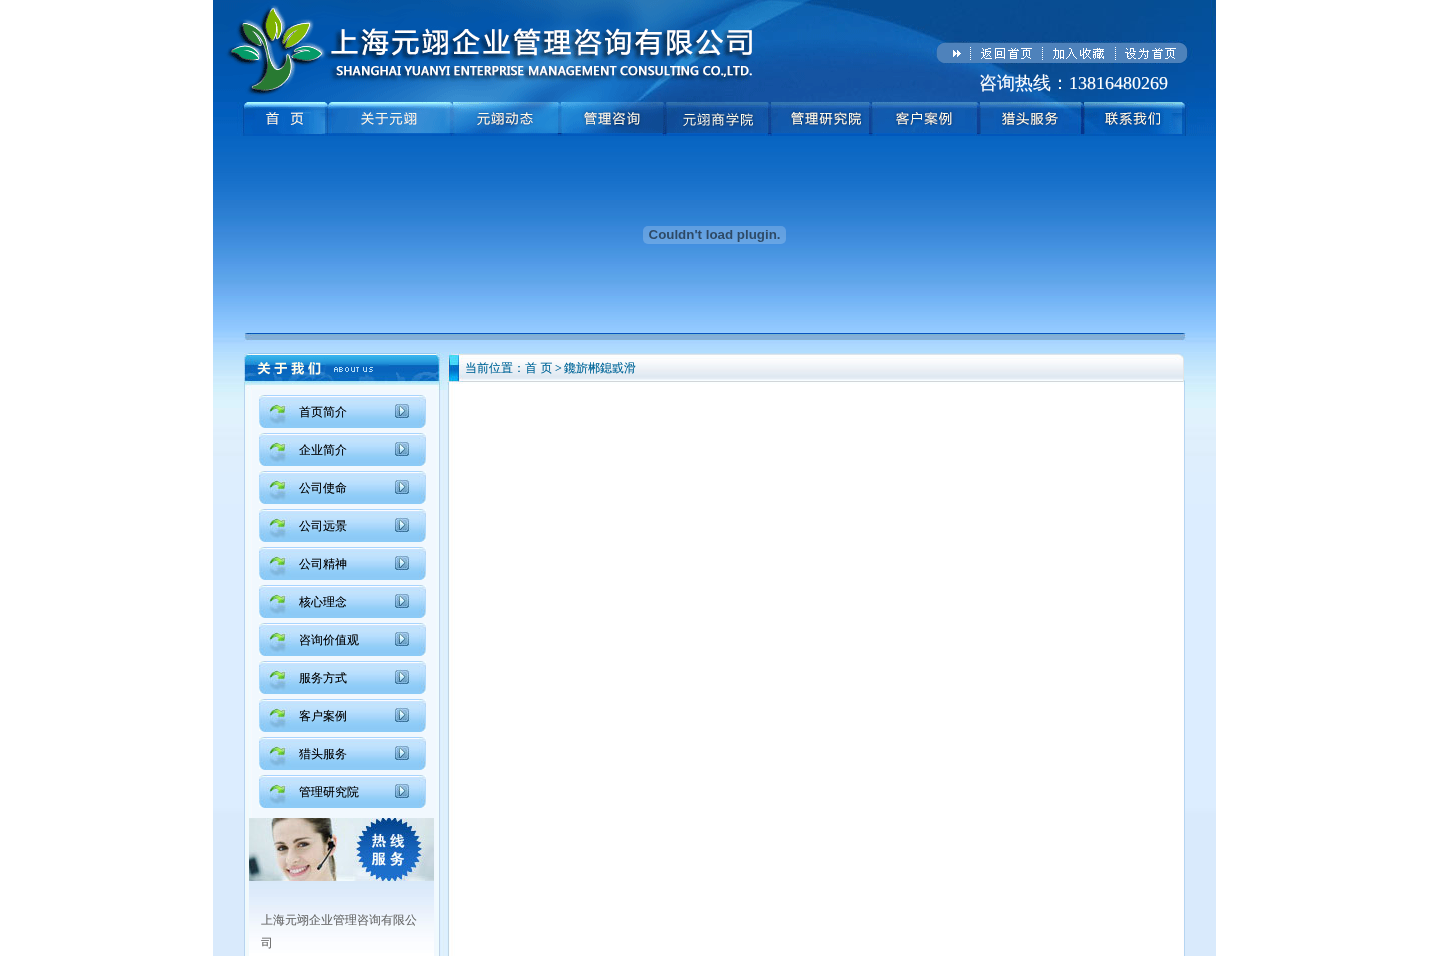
void draw(SkCanvas* canvas) {
    SkPaint paint;
    paint.setAntiAlias(true);
    canvas->clear(0xFFFFFFFF);
    canvas->drawImageRect(SkImages::DeferredFromEncodedData(SkData::MakeFromFileName("img1.png")), SkRect::MakeXYWH(213, 0, 717, 102), SkSamplingOptions());
    canvas->drawImageRect(SkImages::DeferredFromEncodedData(SkData::MakeFromFileName("img2.png")), SkRect::MakeXYWH(930, 0, 286, 43), SkSamplingOptions());
    canvas->drawImageRect(SkImages::DeferredFromEncodedData(SkData::MakeFromFileName("img3.png")), SkRect::MakeXYWH(930, 43, 49, 20), SkSamplingOptions());
    canvas->drawImageRect(SkImages::DeferredFromEncodedData(SkData::MakeFromFileName("img4.png")), SkRect::MakeXYWH(979, 43, 72, 20), SkSamplingOptions());
    canvas->drawImageRect(SkImages::DeferredFromEncodedData(SkData::MakeFromFileName("img5.png")), SkRect::MakeXYWH(1051, 43, 73, 20), SkSamplingOptions());
    canvas->drawImageRect(SkImages::DeferredFromEncodedData(SkData::MakeFromFileName("img6.png")), SkRect::MakeXYWH(1124, 43, 64, 20), SkSamplingOptions());
    canvas->drawImageRect(SkImages::DeferredFromEncodedData(SkData::MakeFromFileName("img7.png")), SkRect::MakeXYWH(1188, 43, 28, 20), SkSamplingOptions());
    canvas->drawImageRect(SkImages::DeferredFromEncodedData(SkData::MakeFromFileName("img8.png")), SkRect::MakeXYWH(930, 63, 286, 39), SkSamplingOptions());
    SkFont font1(fontMgr->matchFamilyStyle("WenQuanYi Zen Hei", SkFontStyle(500, SkFontStyle::kNormal_Width, SkFontStyle::kUpright_Slant)), 18);
    font1.setSubpixel(true);
    paint.setColor(0xFFFFFFFF);
    canvas->drawString("咨询热线：", 979, 89, font1, paint);
    SkFont font2(fontMgr->matchFamilyStyle("Liberation Serif", SkFontStyle::Normal()), 18);
    font2.setSubpixel(true);
    canvas->drawString("13816480269", 1069, 89, font2, paint);
    canvas->drawImageRect(SkImages::DeferredFromEncodedData(SkData::MakeFromFileName("img9.png")), SkRect::MakeXYWH(213, 102, 1003, 34), SkSamplingOptions());
    canvas->drawImageRect(SkImages::DeferredFromEncodedData(SkData::MakeFromFileName("img10.png")), SkRect::MakeXYWH(213, 136, 1003, 820), SkSamplingOptions());
    canvas->drawImageRect(SkImages::DeferredFromEncodedData(SkData::MakeFromFileName("img11.png")), SkRect::MakeXYWH(643, 226, 143, 18), SkSamplingOptions());
    canvas->drawImageRect(SkImages::DeferredFromEncodedData(SkData::MakeFromFileName("img12.png")), SkRect::MakeXYWH(244, 333, 942, 9), SkSamplingOptions());
    canvas->drawImageRect(SkImages::DeferredFromEncodedData(SkData::MakeFromFileName("img13.png")), SkRect::MakeXYWH(447, 385, 738, 571), SkSamplingOptions());
    canvas->drawImageRect(SkImages::DeferredFromEncodedData(SkData::MakeFromFileName("img14.png")), SkRect::MakeXYWH(447, 352, 738, 33), SkSamplingOptions());
    SkFont font3(fontMgr->matchFamilyStyle("WenQuanYi Zen Hei", SkFontStyle(500, SkFontStyle::kNormal_Width, SkFontStyle::kUpright_Slant)), 12);
    font3.setSubpixel(true);
    paint.setColor(0xFF006699);
    canvas->drawString("当前位置：首 页", 465, 372, font3, paint);
    SkFont font4(fontMgr->matchFamilyStyle("Liberation Serif", SkFontStyle::Normal()), 12);
    font4.setSubpixel(true);
    canvas->drawString(">", 555, 372, font4, paint);
    canvas->drawString("鑱旂郴鎴戜滑", 564, 372, font3, paint);
    canvas->drawImageRect(SkImages::DeferredFromEncodedData(SkData::MakeFromFileName("img15.png")), SkRect::MakeXYWH(244, 390, 203, 566), SkSamplingOptions());
    canvas->drawImageRect(SkImages::DeferredFromEncodedData(SkData::MakeFromFileName("img16.png")), SkRect::MakeXYWH(244, 352, 203, 38), SkSamplingOptions());
    canvas->drawImageRect(SkImages::DeferredFromEncodedData(SkData::MakeFromFileName("img17.png")), SkRect::MakeXYWH(259, 395, 167, 33), SkSamplingOptions());
    paint.setColor(0xFF000000);
    canvas->drawString("首页简介", 299, 416, font3, paint);
    canvas->drawImageRect(SkImages::DeferredFromEncodedData(SkData::MakeFromFileName("img17.png")), SkRect::MakeXYWH(259, 433, 167, 33), SkSamplingOptions());
    canvas->drawString("企业简介", 299, 454, font3, paint);
    canvas->drawImageRect(SkImages::DeferredFromEncodedData(SkData::MakeFromFileName("img17.png")), SkRect::MakeXYWH(259, 471, 167, 33), SkSamplingOptions());
    canvas->drawString("公司使命", 299, 492, font3, paint);
    canvas->drawImageRect(SkImages::DeferredFromEncodedData(SkData::MakeFromFileName("img17.png")), SkRect::MakeXYWH(259, 509, 167, 33), SkSamplingOptions());
    canvas->drawString("公司远景", 299, 530, font3, paint);
    canvas->drawImageRect(SkImages::DeferredFromEncodedData(SkData::MakeFromFileName("img17.png")), SkRect::MakeXYWH(259, 547, 167, 33), SkSamplingOptions());
    canvas->drawString("公司精神", 299, 568, font3, paint);
    canvas->drawImageRect(SkImages::DeferredFromEncodedData(SkData::MakeFromFileName("img17.png")), SkRect::MakeXYWH(259, 585, 167, 33), SkSamplingOptions());
    canvas->drawString("核心理念", 299, 606, font3, paint);
    canvas->drawImageRect(SkImages::DeferredFromEncodedData(SkData::MakeFromFileName("img17.png")), SkRect::MakeXYWH(259, 623, 167, 33), SkSamplingOptions());
    canvas->drawString("咨询价值观", 299, 644, font3, paint);
    canvas->drawImageRect(SkImages::DeferredFromEncodedData(SkData::MakeFromFileName("img17.png")), SkRect::MakeXYWH(259, 661, 167, 33), SkSamplingOptions());
    canvas->drawString("服务方式", 299, 682, font3, paint);
    canvas->drawImageRect(SkImages::DeferredFromEncodedData(SkData::MakeFromFileName("img17.png")), SkRect::MakeXYWH(259, 699, 167, 33), SkSamplingOptions());
    canvas->drawString("客户案例", 299, 720, font3, paint);
    canvas->drawImageRect(SkImages::DeferredFromEncodedData(SkData::MakeFromFileName("img17.png")), SkRect::MakeXYWH(259, 737, 167, 33), SkSamplingOptions());
    canvas->drawString("猎头服务", 299, 758, font3, paint);
    canvas->drawImageRect(SkImages::DeferredFromEncodedData(SkData::MakeFromFileName("img17.png")), SkRect::MakeXYWH(259, 775, 167, 33), SkSamplingOptions());
    canvas->drawString("管理研究院", 299, 796, font3, paint);
    canvas->drawImageRect(SkImages::DeferredFromEncodedData(SkData::MakeFromFileName("img18.png")), SkRect::MakeXYWH(249, 818, 185, 63), SkSamplingOptions());
    canvas->drawImageRect(SkImages::DeferredFromEncodedData(SkData::MakeFromFileName("img19.png")), SkRect::MakeXYWH(249, 881, 185, 75), SkSamplingOptions());
    paint.setColor(0xFF666666);
    canvas->drawString("上海元翊企业管理咨询有限公", 261, 924, font3, paint);
    canvas->drawString("司", 261, 947, font3, paint);
}
